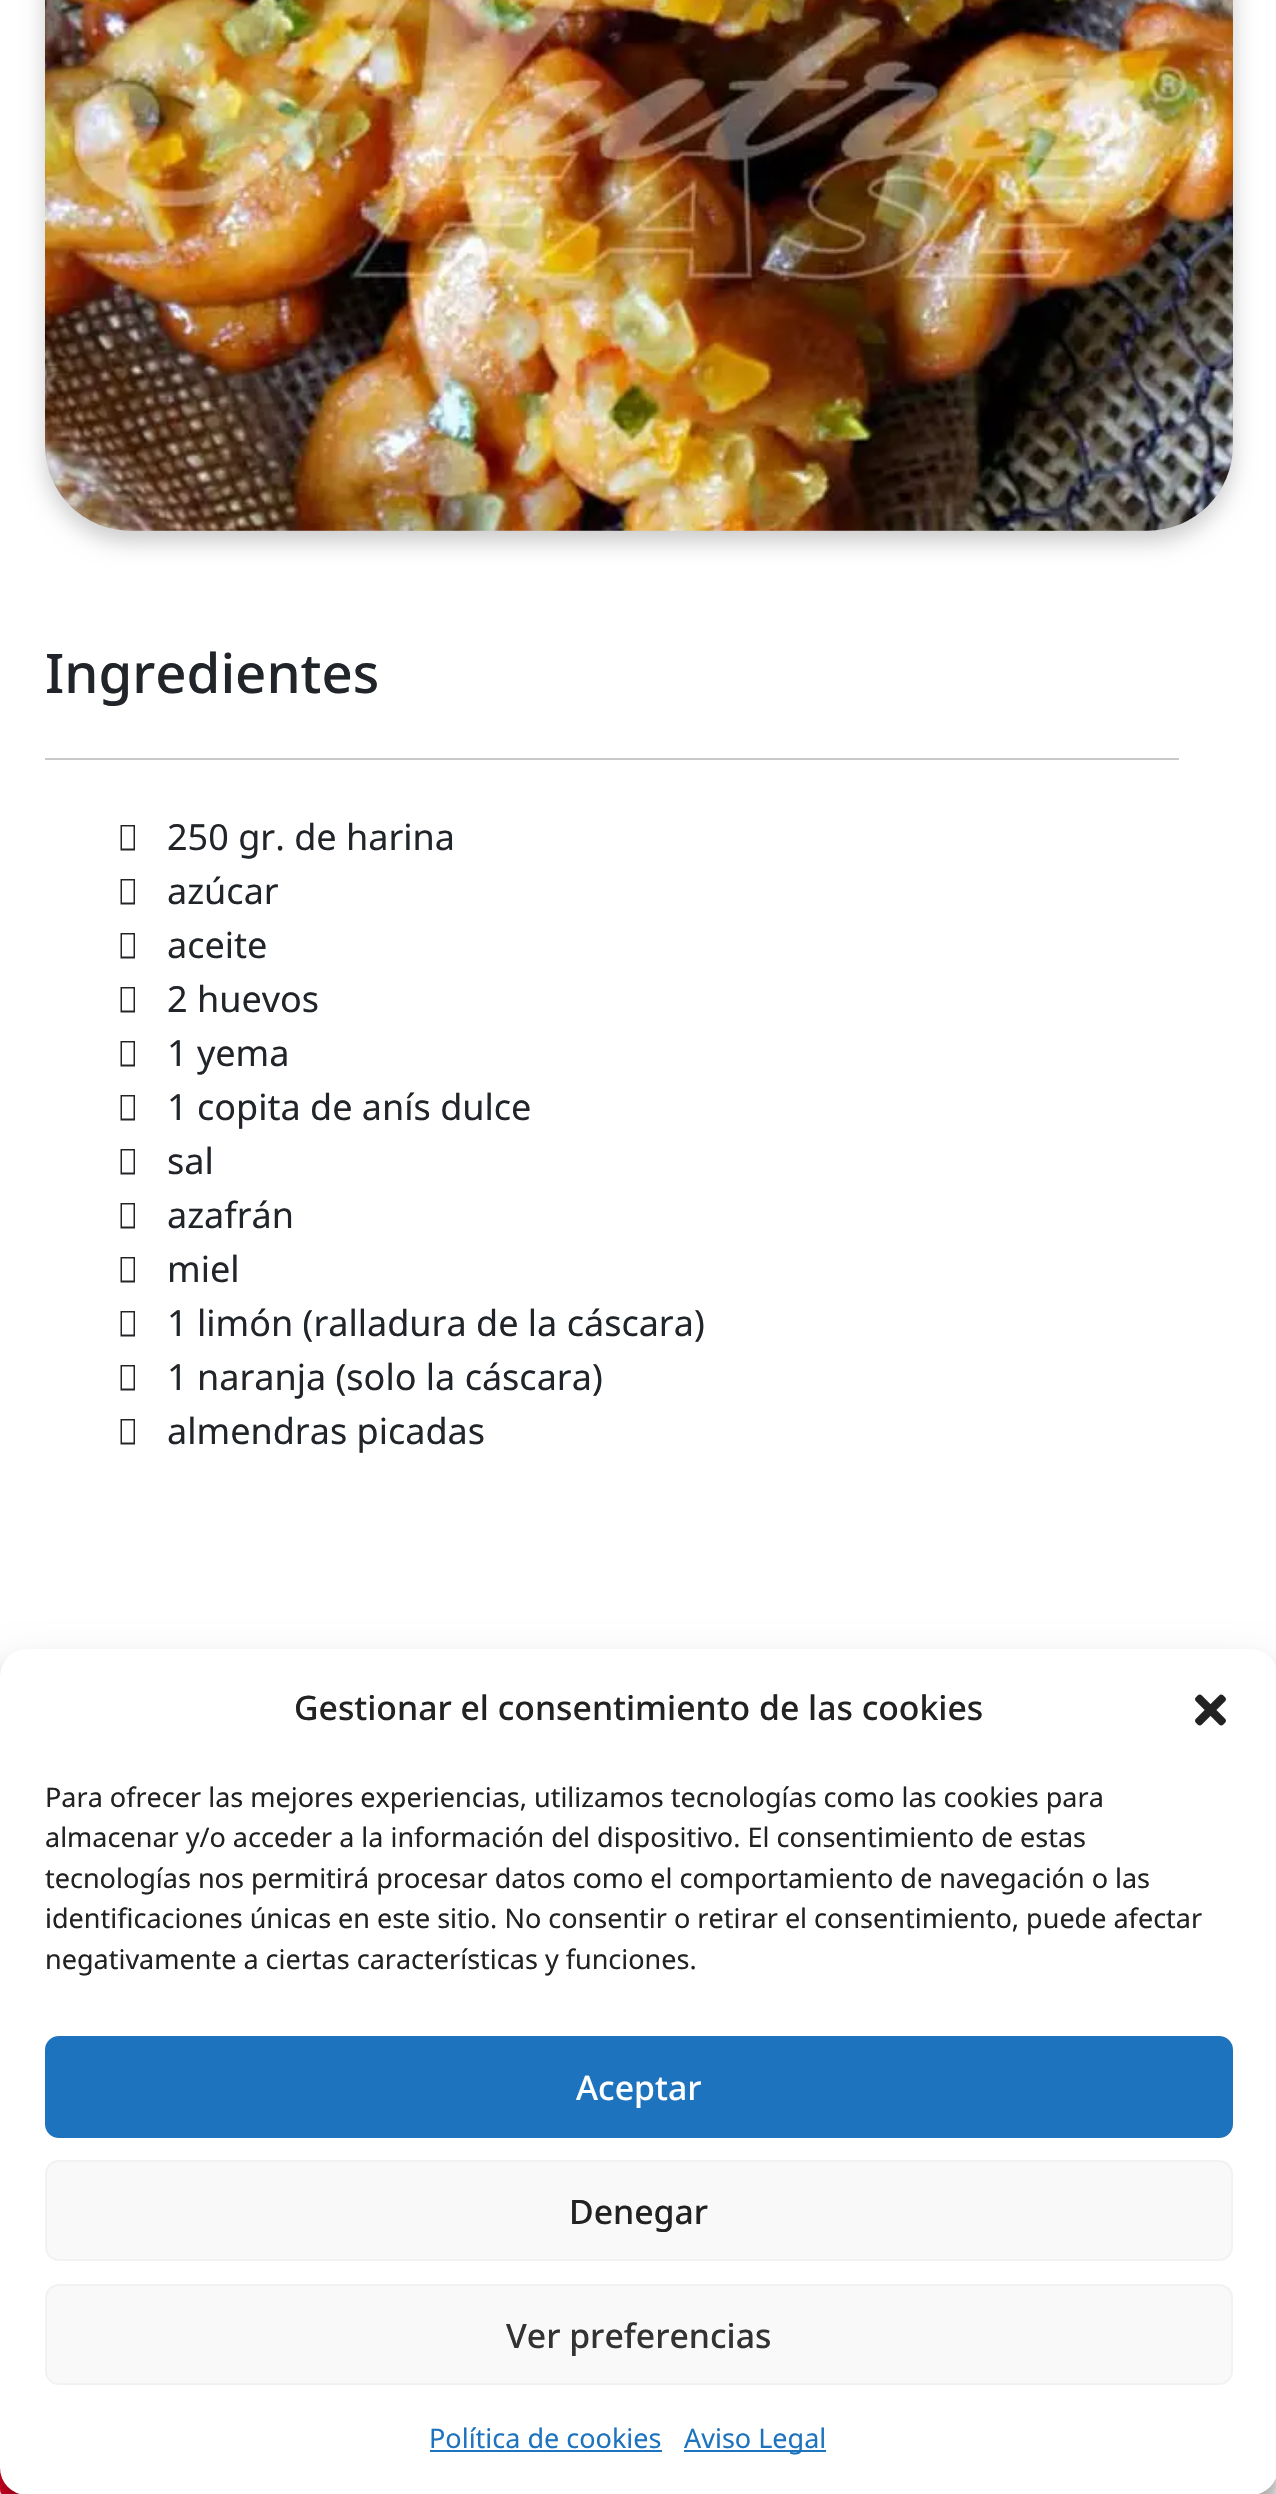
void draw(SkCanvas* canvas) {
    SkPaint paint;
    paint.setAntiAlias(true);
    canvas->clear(0xFFFFFFFF);
    paint.setColor(0x33000000);
    paint.setMaskFilter(SkMaskFilter::MakeBlur(kNormal_SkBlurStyle, 11));
    canvas->drawRoundRect(SkRect::MakeXYWH(45, -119, 1188, 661), 86, 86, paint);
    paint.setMaskFilter(nullptr);
    canvas->drawImageRect(SkImages::DeferredFromEncodedData(SkData::MakeFromFileName("img1.png")), SkRect::MakeXYWH(45, 0, 1188, 531), SkSamplingOptions());
    SkFont font1(fontMgr->matchFamilyStyle("Noto Sans", SkFontStyle(500, SkFontStyle::kNormal_Width, SkFontStyle::kUpright_Slant)), 54.5f);
    font1.setSubpixel(true);
    paint.setColor(0xFF212529);
    canvas->drawString("Ingredientes", 45, 693, font1, paint);
    paint.setColor(0xFFC8C9CA);
    canvas->drawRect(SkRect::MakeXYWH(45, 758, 1134, 2), paint);
    paint.setColor(0xFF212529);
    canvas->drawPath(SkPathBuilder().moveTo(120.5f, 850.5f).lineTo(120.5f, 825).lineTo(135, 825).lineTo(135, 850.5f).close().moveTo(122, 848.5f).lineTo(133.5f, 848.5f).lineTo(133.5f, 826.5f).lineTo(122, 826.5f).close().detach(), paint);
    SkFont font2(fontMgr->matchFamilyStyle("Noto Sans", SkFontStyle::Normal()), 36);
    font2.setSubpixel(true);
    canvas->drawString("250 gr. de harina", 167, 850, font2, paint);
    canvas->drawPath(SkPathBuilder().moveTo(120.5f, 904.5f).lineTo(120.5f, 879).lineTo(135, 879).lineTo(135, 904.5f).close().moveTo(122, 902.5f).lineTo(133.5f, 902.5f).lineTo(133.5f, 880.5f).lineTo(122, 880.5f).close().detach(), paint);
    canvas->drawString("azúcar", 167, 904, font2, paint);
    canvas->drawPath(SkPathBuilder().moveTo(120.5f, 958.5f).lineTo(120.5f, 933).lineTo(135, 933).lineTo(135, 958.5f).close().moveTo(122, 956.5f).lineTo(133.5f, 956.5f).lineTo(133.5f, 934.5f).lineTo(122, 934.5f).close().detach(), paint);
    canvas->drawString("aceite", 167, 958, font2, paint);
    canvas->drawPath(SkPathBuilder().moveTo(120.5f, 1012.5f).lineTo(120.5f, 987).lineTo(135, 987).lineTo(135, 1012.5f).close().moveTo(122, 1010.5f).lineTo(133.5f, 1010.5f).lineTo(133.5f, 988.5f).lineTo(122, 988.5f).close().detach(), paint);
    canvas->drawString("2 huevos", 167, 1012, font2, paint);
    canvas->drawPath(SkPathBuilder().moveTo(120.5f, 1066.5f).lineTo(120.5f, 1041).lineTo(135, 1041).lineTo(135, 1066.5f).close().moveTo(122, 1064.5f).lineTo(133.5f, 1064.5f).lineTo(133.5f, 1042.5f).lineTo(122, 1042.5f).close().detach(), paint);
    canvas->drawString("1 yema", 167, 1066, font2, paint);
    canvas->drawPath(SkPathBuilder().moveTo(120.5f, 1120.5f).lineTo(120.5f, 1095).lineTo(135, 1095).lineTo(135, 1120.5f).close().moveTo(122, 1118.5f).lineTo(133.5f, 1118.5f).lineTo(133.5f, 1096.5f).lineTo(122, 1096.5f).close().detach(), paint);
    canvas->drawString("1 copita de anís dulce", 167, 1120, font2, paint);
    canvas->drawPath(SkPathBuilder().moveTo(120.5f, 1174.5f).lineTo(120.5f, 1149).lineTo(135, 1149).lineTo(135, 1174.5f).close().moveTo(122, 1172.5f).lineTo(133.5f, 1172.5f).lineTo(133.5f, 1150.5f).lineTo(122, 1150.5f).close().detach(), paint);
    canvas->drawString("sal", 167, 1174, font2, paint);
    canvas->drawPath(SkPathBuilder().moveTo(120.5f, 1228.5f).lineTo(120.5f, 1203).lineTo(135, 1203).lineTo(135, 1228.5f).close().moveTo(122, 1226.5f).lineTo(133.5f, 1226.5f).lineTo(133.5f, 1204.5f).lineTo(122, 1204.5f).close().detach(), paint);
    canvas->drawString("azafrán", 167, 1228, font2, paint);
    canvas->drawPath(SkPathBuilder().moveTo(120.5f, 1282.5f).lineTo(120.5f, 1257).lineTo(135, 1257).lineTo(135, 1282.5f).close().moveTo(122, 1280.5f).lineTo(133.5f, 1280.5f).lineTo(133.5f, 1258.5f).lineTo(122, 1258.5f).close().detach(), paint);
    canvas->drawString("miel", 167, 1282, font2, paint);
    canvas->drawPath(SkPathBuilder().moveTo(120.5f, 1336.5f).lineTo(120.5f, 1311).lineTo(135, 1311).lineTo(135, 1336.5f).close().moveTo(122, 1334.5f).lineTo(133.5f, 1334.5f).lineTo(133.5f, 1312.5f).lineTo(122, 1312.5f).close().detach(), paint);
    canvas->drawString("1 limón (ralladura de la cáscara)", 167, 1336, font2, paint);
    canvas->drawPath(SkPathBuilder().moveTo(120.5f, 1390.5f).lineTo(120.5f, 1365).lineTo(135, 1365).lineTo(135, 1390.5f).close().moveTo(122, 1388.5f).lineTo(133.5f, 1388.5f).lineTo(133.5f, 1366.5f).lineTo(122, 1366.5f).close().detach(), paint);
    canvas->drawString("1 naranja (solo la cáscara)", 167, 1390, font2, paint);
    canvas->drawPath(SkPathBuilder().moveTo(120.5f, 1444.5f).lineTo(120.5f, 1419).lineTo(135, 1419).lineTo(135, 1444.5f).close().moveTo(122, 1442.5f).lineTo(133.5f, 1442.5f).lineTo(133.5f, 1420.5f).lineTo(122, 1420.5f).close().detach(), paint);
    canvas->drawString("almendras picadas", 167, 1444, font2, paint);
    paint.setColor(0xFFE60023);
    canvas->drawRoundRect(SkRect::MakeXYWH(0, 2435, 153, 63), 9, 9, paint);
    paint.setColor(0x3B000000);
    paint.setMaskFilter(SkMaskFilter::MakeBlur(kNormal_SkBlurStyle, 7));
    canvas->drawRoundRect(SkRect::MakeXYWH(0, 1663, 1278, 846), 27, 27, paint);
    paint.setMaskFilter(nullptr);
    paint.setColor(0x30000000);
    paint.setMaskFilter(SkMaskFilter::MakeBlur(kNormal_SkBlurStyle, 22.5f));
    canvas->drawRoundRect(SkRect::MakeXYWH(0, 1672, 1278, 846), 27, 27, paint);
    paint.setMaskFilter(nullptr);
    paint.setColor(0xFFFFFFFF);
    canvas->drawRoundRect(SkRect::MakeXYWH(0, 1649, 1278, 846), 27, 27, paint);
    SkFont font3(fontMgr->matchFamilyStyle("Noto Sans", SkFontStyle(500, SkFontStyle::kNormal_Width, SkFontStyle::kUpright_Slant)), 33.75f);
    font3.setSubpixel(true);
    paint.setColor(0xFF222222);
    canvas->drawString("Gestionar el consentimiento de las cookies", 294, 1720, font3, paint);
    canvas->drawImageRect(SkImages::DeferredFromEncodedData(SkData::MakeFromFileName("img2.png")), SkRect::MakeXYWH(1195, 1694, 31, 32), SkSamplingOptions());
    SkFont font4(fontMgr->matchFamilyStyle("Noto Sans", SkFontStyle::Normal()), 27);
    font4.setSubpixel(true);
    canvas->drawString("Para ofrecer las mejores experiencias, utilizamos tecnologías como las cookies para", 45, 1807, font4, paint);
    canvas->drawString("almacenar y/o acceder a la información del dispositivo. El consentimiento de estas", 45, 1847, font4, paint);
    canvas->drawString("tecnologías nos permitirá procesar datos como el comportamiento de navegación o las", 45, 1888, font4, paint);
    canvas->drawString("identificaciones únicas en este sitio. No consentir o retirar el consentimiento, puede afectar", 45, 1928, font4, paint);
    canvas->drawString("negativamente a ciertas características y funciones.", 45, 1969, font4, paint);
    paint.setColor(0xFF1E73BE);
    canvas->drawRoundRect(SkRect::MakeXYWH(46, 2037, 1186, 100), 13, 13, paint);
    paint.setStyle(SkPaint::kStroke_Style);
    paint.setStrokeWidth(2);
    canvas->drawRoundRect(SkRect::MakeXYWH(46, 2037, 1186, 100), 13, 13, paint);
    paint.setStyle(SkPaint::kFill_Style);
    paint.setColor(0xFFFFFFFF);
    canvas->drawString("Aceptar", 576, 2100, font3, paint);
    paint.setColor(0xFFF9F9F9);
    canvas->drawRoundRect(SkRect::MakeXYWH(46, 2161, 1186, 99), 13, 13, paint);
    paint.setStyle(SkPaint::kStroke_Style);
    paint.setColor(0xFFF2F2F2);
    canvas->drawRoundRect(SkRect::MakeXYWH(46, 2161, 1186, 99), 13, 13, paint);
    paint.setStyle(SkPaint::kFill_Style);
    paint.setColor(0xFF222222);
    canvas->drawString("Denegar", 569, 2224, font3, paint);
    paint.setColor(0xFFF9F9F9);
    canvas->drawRoundRect(SkRect::MakeXYWH(46, 2285, 1186, 99), 13, 13, paint);
    paint.setStyle(SkPaint::kStroke_Style);
    paint.setColor(0xFFF2F2F2);
    canvas->drawRoundRect(SkRect::MakeXYWH(46, 2285, 1186, 99), 13, 13, paint);
    paint.setStyle(SkPaint::kFill_Style);
    paint.setColor(0xFF333333);
    canvas->drawString("Ver preferencias", 506, 2348, font3, paint);
    paint.setColor(0xFF1E73BE);
    canvas->drawString("Política de cookies", 429, 2448, font4, paint);
    canvas->drawRect(SkRect::MakeXYWH(430, 2450, 232, 2), paint);
    canvas->drawRect(SkRect::MakeXYWH(684, 2450, 142, 2), paint);
    canvas->drawString("Aviso Legal", 684, 2448, font4, paint);
}
